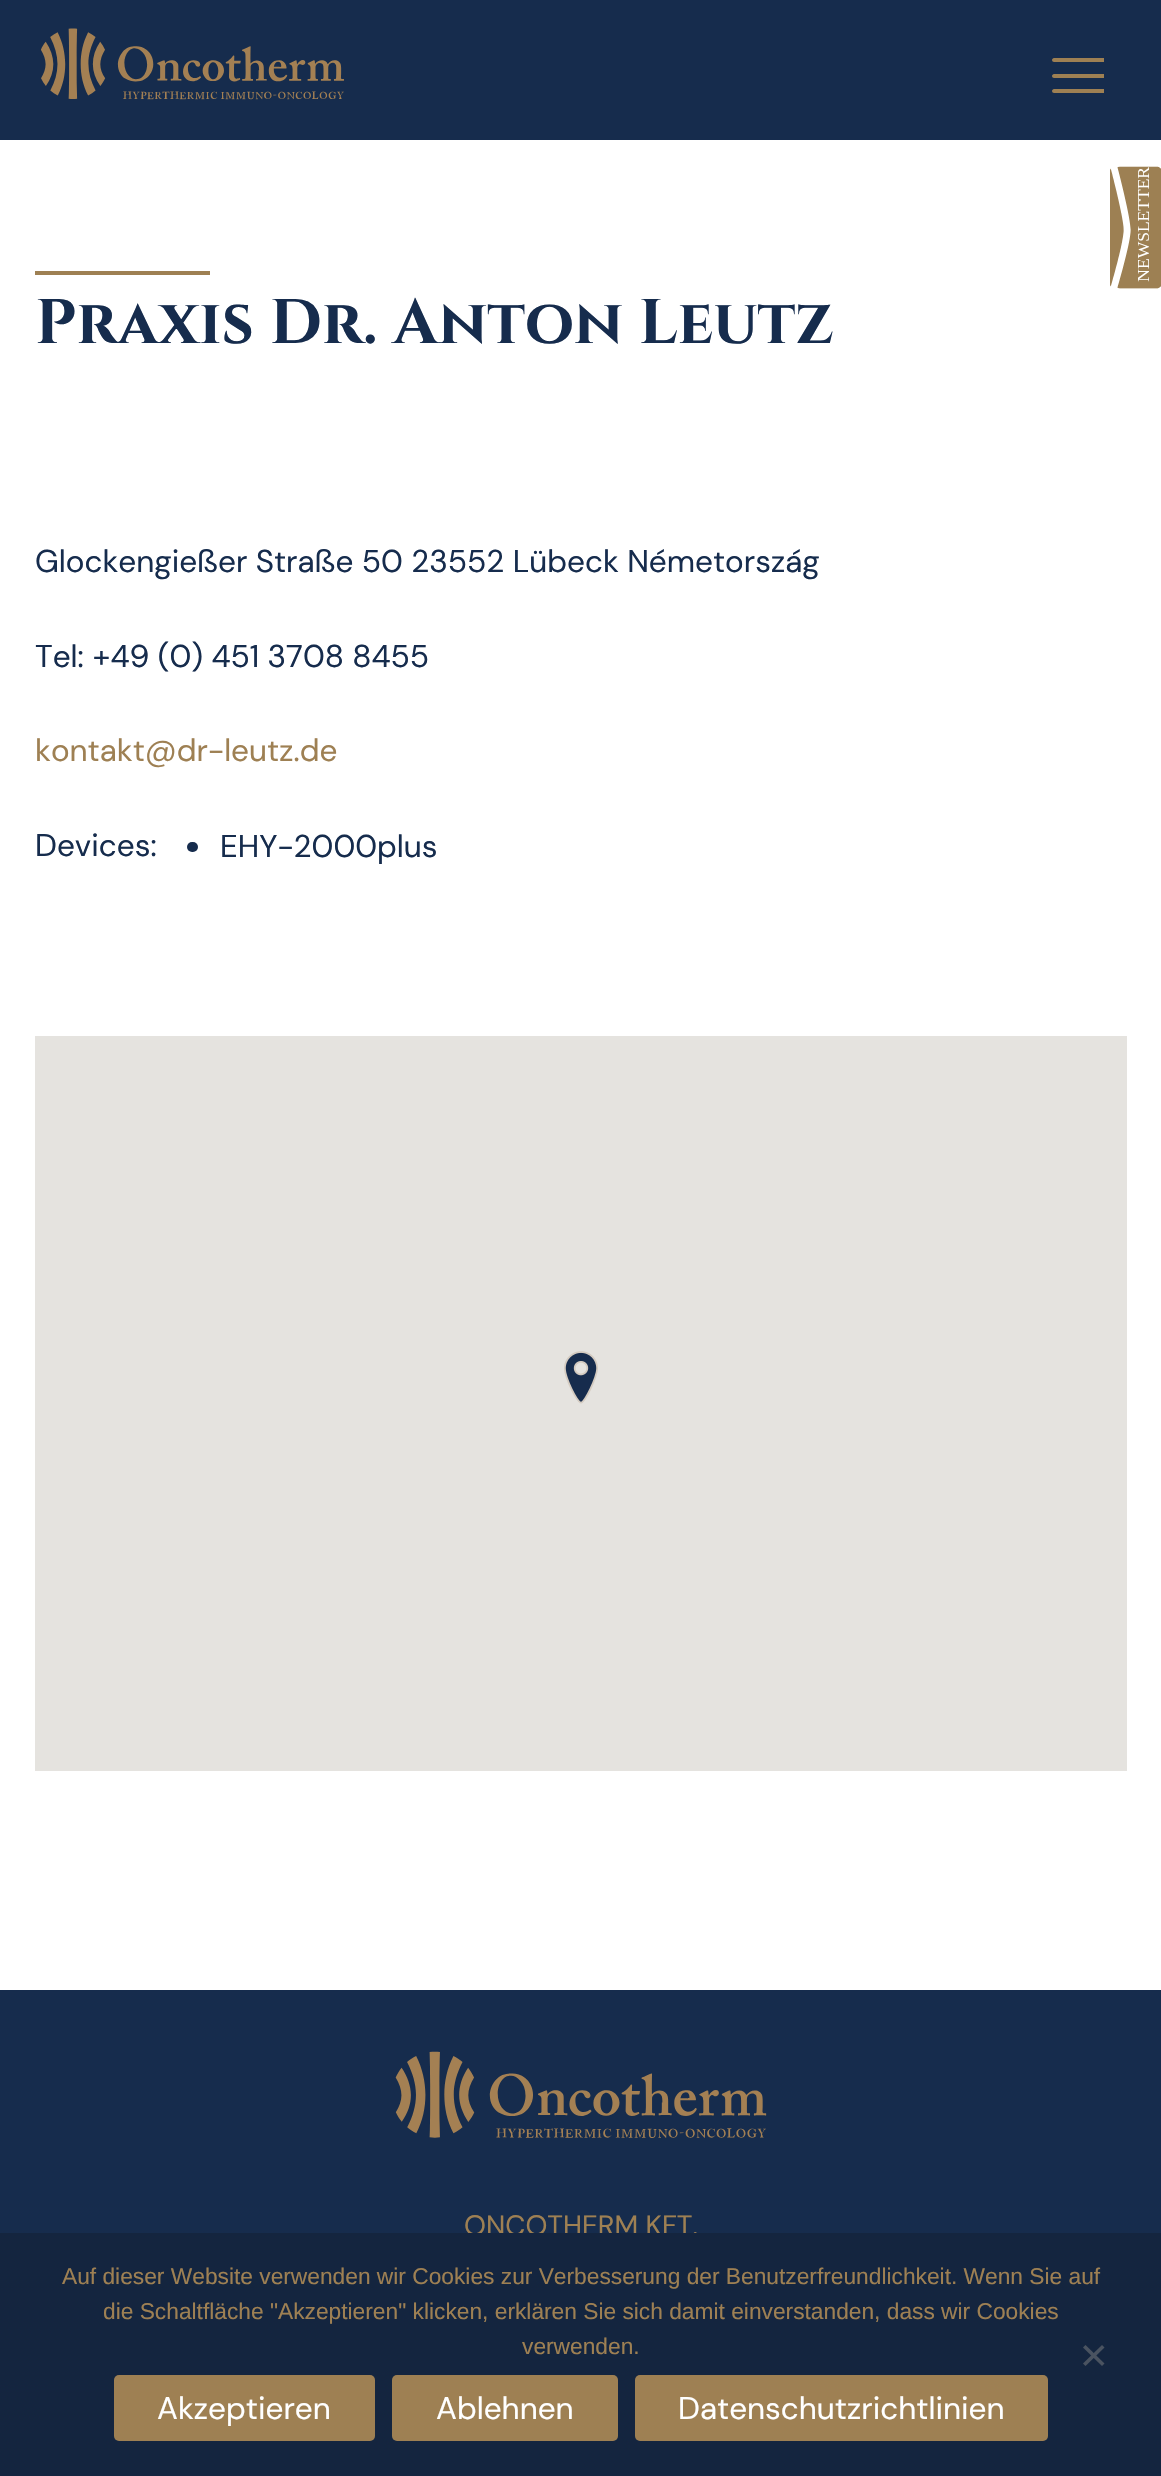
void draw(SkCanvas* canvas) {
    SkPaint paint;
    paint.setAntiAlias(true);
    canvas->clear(0xFFFFFFFF);
    paint.setColor(0xFF162C4D);
    canvas->drawRect(SkRect::MakeXYWH(0, 0, 1161, 140), paint);
    paint.setColor(0xFF9E8053);
    canvas->drawPath(SkPathBuilder().moveTo(1054, 74).lineTo(1104, 74).lineTo(1104, 78).lineTo(1054, 78).cubicTo(1053, 78, 1052, 77, 1052, 76).cubicTo(1052, 75, 1053, 74, 1054, 74).close().detach(), paint);
    canvas->drawPath(SkPathBuilder().moveTo(1054, 58).lineTo(1104, 58).lineTo(1104, 62).lineTo(1054, 62).cubicTo(1053, 62, 1052, 61, 1052, 60).cubicTo(1052, 59, 1053, 58, 1054, 58).close().detach(), paint);
    canvas->drawPath(SkPathBuilder().moveTo(1054, 89).lineTo(1104, 89).lineTo(1104, 93).lineTo(1054, 93).cubicTo(1053, 93, 1052, 92, 1052, 91).cubicTo(1052, 90, 1053, 89, 1054, 89).close().detach(), paint);
    canvas->drawImageRect(SkImages::DeferredFromEncodedData(SkData::MakeFromFileName("img1.png")), SkRect::MakeXYWH(41, 28, 303, 72), SkSamplingOptions());
    canvas->drawImageRect(SkImages::DeferredFromEncodedData(SkData::MakeFromFileName("img2.png")), SkRect::MakeXYWH(1110, 166, 51, 123), SkSamplingOptions());
    canvas->drawRect(SkRect::MakeXYWH(35, 271, 175, 4), paint);
    SkFont font1(fontMgr->matchFamilyStyle("Cinzel", SkFontStyle::Bold()), 63);
    font1.setSubpixel(true);
    paint.setColor(0xFF162C4D);
    canvas->drawString("Praxis Dr. Anton Leutz", 35, 343, font1, paint);
    SkFont font2(fontMgr->matchFamilyStyle("DM Sans", SkFontStyle::Normal()), 31.5f);
    font2.setSubpixel(true);
    canvas->drawString("Glockengießer Straße 50 23552 Lübeck Németország", 35, 572, font2, paint);
    canvas->drawString("Tel: +49 (0) 451 3708 8455", 35, 667, font2, paint);
    paint.setColor(0xFF9E8053);
    canvas->drawString("kontakt@dr-leutz.de", 35, 761, font2, paint);
    paint.setColor(0xFF162C4D);
    canvas->drawString("Devices:", 35, 856, font2, paint);
    canvas->drawRoundRect(SkRect::MakeXYWH(187, 842, 11, 10), 5, 5, paint);
    canvas->drawString("EHY-2000plus", 220, 857, font2, paint);
    paint.setColor(0xFFE5E3DF);
    canvas->drawRect(SkRect::MakeXYWH(35, 1036, 1092, 735), paint);
    canvas->drawImageRect(SkImages::DeferredFromEncodedData(SkData::MakeFromFileName("img3.png")), SkRect::MakeXYWH(564, 1351, 34, 53), SkSamplingOptions());
    paint.setColor(0xFF162C4D);
    canvas->drawRect(SkRect::MakeXYWH(0, 1990, 1161, 243), paint);
    canvas->drawImageRect(SkImages::DeferredFromEncodedData(SkData::MakeFromFileName("img4.png")), SkRect::MakeXYWH(395, 2051, 372, 87), SkSamplingOptions());
    SkFont font3(fontMgr->matchFamilyStyle("DM Sans", SkFontStyle::Normal()), 28);
    font3.setSubpixel(true);
    paint.setColor(0xFF9E8053);
    canvas->drawString("ONCOTHERM KFT.", 464, 2235, font3, paint);
    paint.setColor(0xFF14253F);
    canvas->drawRect(SkRect::MakeXYWH(0, 2233, 1161, 243), paint);
    SkFont font4(fontMgr->matchFamilyStyle("Liberation Sans", SkFontStyle::Normal()), 22.75f);
    font4.setSubpixel(true);
    paint.setColor(0xFF9E8053);
    canvas->drawString("Auf dieser Website verwenden wir Cookies zur Verbesserung der Benutzerfreundlichkeit. Wenn Sie auf", 62, 2284, font4, paint);
    canvas->drawString("die Schaltfläche \"Akzeptieren\" klicken, erklären Sie sich damit einverstanden, dass wir Cookies", 103, 2319, font4, paint);
    canvas->drawString("verwenden.", 522, 2354, font4, paint);
    paint.setColor(0xFF4A5360);
    canvas->drawPath(SkPathBuilder().moveTo(1102, 2345).lineTo(1104.5f, 2347.5f).lineTo(1085.5f, 2366).lineTo(1083, 2363.5f).close().detach(), paint);
    canvas->drawPath(SkPathBuilder().moveTo(1083, 2347.5f).lineTo(1085.5f, 2345).lineTo(1104.5f, 2363.5f).lineTo(1102, 2366).close().detach(), paint);
    paint.setColor(0xFF9E8053);
    canvas->drawRoundRect(SkRect::MakeXYWH(114, 2375, 261, 66), 5, 5, paint);
    paint.setColor(0xFFFFFFFF);
    canvas->drawString("Akzeptieren", 157, 2419, font2, paint);
    paint.setColor(0xFF9E8053);
    canvas->drawRoundRect(SkRect::MakeXYWH(392, 2375, 226, 66), 5, 5, paint);
    paint.setColor(0xFFFFFFFF);
    canvas->drawString("Ablehnen", 436, 2419, font2, paint);
    paint.setColor(0xFF9E8053);
    canvas->drawRoundRect(SkRect::MakeXYWH(635, 2375, 413, 66), 5, 5, paint);
    paint.setColor(0xFFFFFFFF);
    canvas->drawString("Datenschutzrichtlinien", 678, 2419, font2, paint);
}
